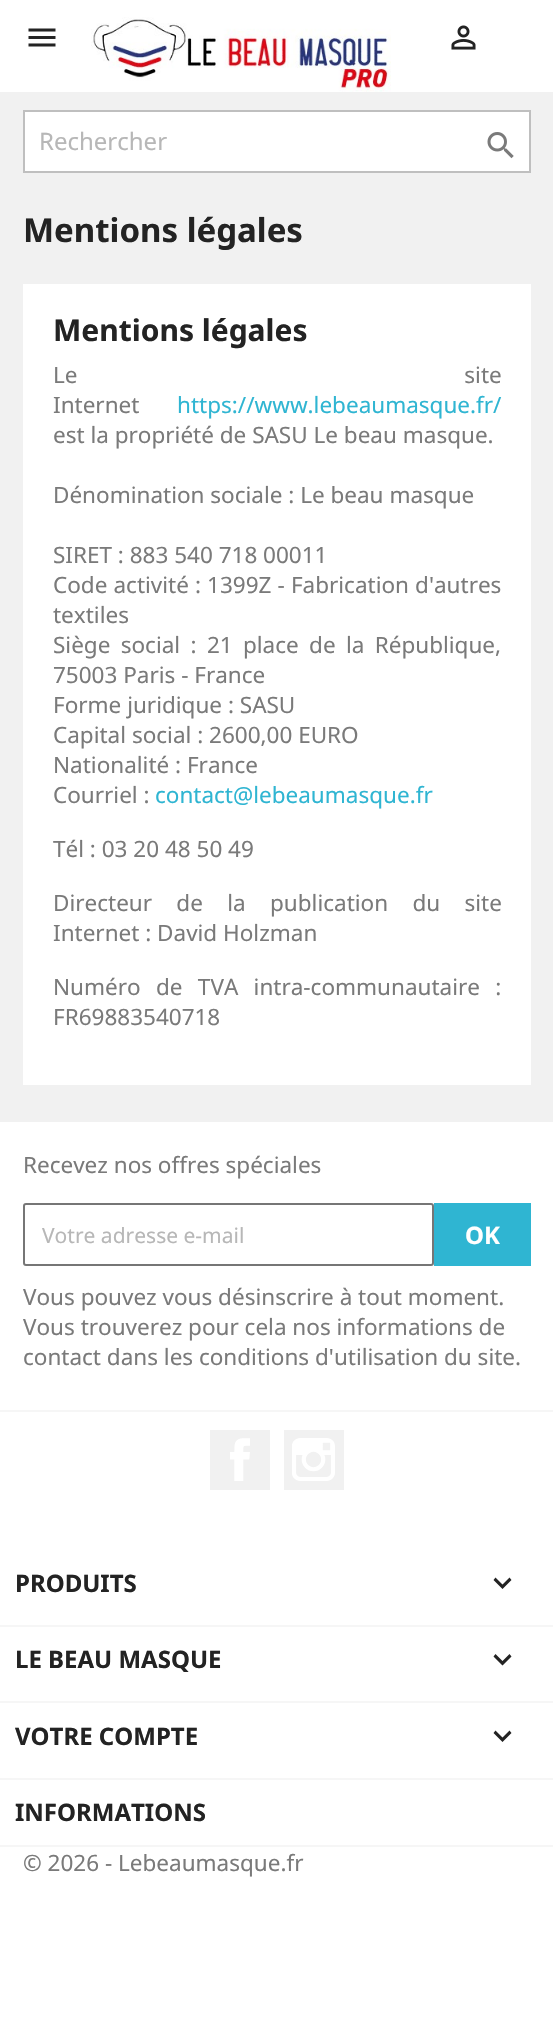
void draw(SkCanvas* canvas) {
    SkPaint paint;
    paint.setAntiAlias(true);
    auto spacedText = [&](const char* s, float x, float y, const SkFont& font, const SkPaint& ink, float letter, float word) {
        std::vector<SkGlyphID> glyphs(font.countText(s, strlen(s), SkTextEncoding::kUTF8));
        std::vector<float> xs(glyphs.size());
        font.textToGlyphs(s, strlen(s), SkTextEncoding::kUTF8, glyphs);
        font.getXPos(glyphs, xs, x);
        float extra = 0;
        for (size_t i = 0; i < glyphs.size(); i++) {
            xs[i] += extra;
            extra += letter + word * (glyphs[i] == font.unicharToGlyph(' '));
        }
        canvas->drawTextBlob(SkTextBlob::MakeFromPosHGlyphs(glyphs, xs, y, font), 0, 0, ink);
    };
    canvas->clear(0xFFFFFFFF);
    paint.setColor(0xFFF1F1F1);
    canvas->drawRect(SkRect::MakeXYWH(0, 92, 553, 1030), paint);
    canvas->drawImageRect(SkImages::DeferredFromEncodedData(SkData::MakeFromFileName("img1.png")), SkRect::MakeXYWH(28, 28, 28, 19), SkSamplingOptions());
    canvas->drawImageRect(SkImages::DeferredFromEncodedData(SkData::MakeFromFileName("img2.png")), SkRect::MakeXYWH(91, 17, 300, 75), SkSamplingOptions());
    canvas->drawImageRect(SkImages::DeferredFromEncodedData(SkData::MakeFromFileName("img3.png")), SkRect::MakeXYWH(451, 25, 25, 25), SkSamplingOptions());
    paint.setColor(0xFFFFFFFF);
    canvas->drawRect(SkRect::MakeXYWH(24, 111, 506, 61), paint);
    paint.setStyle(SkPaint::kStroke_Style);
    paint.setStrokeWidth(2);
    paint.setColor(0xFFBFBFBF);
    canvas->drawRect(SkRect::MakeXYWH(24, 111, 506, 61), paint);
    SkFont font1(fontMgr->matchFamilyStyle("Noto Sans", SkFontStyle::Normal()), 24);
    font1.setSubpixel(true);
    paint.setStyle(SkPaint::kFill_Style);
    paint.setColor(0xFFB7B7B7);
    canvas->drawString("Rechercher", 39, 150, font1, paint);
    canvas->drawImageRect(SkImages::DeferredFromEncodedData(SkData::MakeFromFileName("img4.png")), SkRect::MakeXYWH(487, 132, 27, 27), SkSamplingOptions());
    SkFont font2(fontMgr->matchFamilyStyle("Noto Sans", SkFontStyle::Bold()), 33);
    font2.setSubpixel(true);
    paint.setColor(0xFF232323);
    canvas->drawString("Mentions légales", 23, 242, font2, paint);
    paint.setColor(0xFFFFFFFF);
    canvas->drawRect(SkRect::MakeXYWH(23, 284, 508, 801), paint);
    SkFont font3(fontMgr->matchFamilyStyle("Noto Sans", SkFontStyle::Bold()), 30);
    font3.setSubpixel(true);
    paint.setColor(0xFF232323);
    canvas->drawString("Mentions légales", 53, 341, font3, paint);
    SkFont font4(fontMgr->matchFamilyStyle("Noto Sans", SkFontStyle::Normal()), 22.5f);
    font4.setSubpixel(true);
    paint.setColor(0xFF7A7A7A);
    spacedText("Le site", 53, 383, font4, paint, 0, 381);
    canvas->drawString("Internet", 53, 413, font4, paint);
    paint.setColor(0xFF2FB5D2);
    canvas->drawString("https://www.lebeaumasque.fr/", 177, 413, font4, paint);
    paint.setColor(0xFF7A7A7A);
    canvas->drawString("est la propriété de SASU Le beau masque.", 53, 443, font4, paint);
    canvas->drawString("Dénomination sociale : Le beau masque", 53, 503, font4, paint);
    canvas->drawString("SIRET : 883 540 718 00011", 53, 563, font4, paint);
    spacedText("Code activité : 1399Z - Fabrication d'autres", 53, 593, font4, paint, 0, 0.25f);
    canvas->drawString("textiles", 53, 623, font4, paint);
    spacedText("Siège social : 21 place de la République,", 53, 653, font4, paint, 0, 4.5f);
    canvas->drawString("75003 Paris - France", 53, 683, font4, paint);
    canvas->drawString("Forme juridique : SASU", 53, 713, font4, paint);
    canvas->drawString("Capital social : 2600,00 EURO", 53, 743, font4, paint);
    canvas->drawString("Nationalité : France", 53, 773, font4, paint);
    canvas->drawString("Courriel :", 53, 803, font4, paint);
    paint.setColor(0xFF2FB5D2);
    canvas->drawString("contact@lebeaumasque.fr", 155, 803, font4, paint);
    paint.setColor(0xFF7A7A7A);
    canvas->drawString("Tél : 03 20 48 50 49", 53, 857, font4, paint);
    spacedText("Directeur de la publication du site", 53, 911, font4, paint, 0, 18.5f);
    canvas->drawString("Internet : David Holzman", 53, 941, font4, paint);
    spacedText("Numéro de TVA intra-communautaire :", 53, 995, font4, paint, 0, 9.5f);
    canvas->drawString("FR69883540718", 53, 1025, font4, paint);
    paint.setColor(0xFFF6F6F6);
    canvas->drawRect(SkRect::MakeXYWH(0, 1410, 553, 2), paint);
    paint.setColor(0xFF7A7A7A);
    canvas->drawString("Recevez nos offres spéciales", 23, 1173, font4, paint);
    paint.setStyle(SkPaint::kStroke_Style);
    paint.setColor(0xFF767676);
    canvas->drawRoundRect(SkRect::MakeXYWH(24, 1204, 409, 61), 2, 2, paint);
    SkFont font5(fontMgr->matchFamilyStyle("Noto Sans", SkFontStyle::Normal()), 21);
    font5.setSubpixel(true);
    paint.setStyle(SkPaint::kFill_Style);
    paint.setColor(0xFFB7B7B7);
    canvas->drawString("Votre adresse e-mail", 42, 1243, font5, paint);
    paint.setColor(0xFF2FB5D2);
    canvas->drawRect(SkRect::MakeXYWH(434, 1203, 97, 63), paint);
    SkFont font6(fontMgr->matchFamilyStyle("Noto Sans", SkFontStyle::Bold()), 24);
    font6.setSubpixel(true);
    paint.setColor(0xFFFFFFFF);
    canvas->drawString("OK", 465, 1244, font6, paint);
    paint.setColor(0xFF7A7A7A);
    canvas->drawString("Vous pouvez vous désinscrire à tout moment.", 23, 1305, font4, paint);
    canvas->drawString("Vous trouverez pour cela nos informations de", 23, 1335, font4, paint);
    canvas->drawString("contact dans les conditions d'utilisation du site.", 23, 1365, font4, paint);
    paint.setColor(0xFFF1F1F1);
    canvas->drawRect(SkRect::MakeXYWH(210, 1430, 60, 60), paint);
    canvas->drawImageRect(SkImages::DeferredFromEncodedData(SkData::MakeFromFileName("img5.png")), SkRect::MakeXYWH(230, 1438, 20, 43), SkSamplingOptions());
    canvas->drawRect(SkRect::MakeXYWH(284, 1430, 60, 60), paint);
    canvas->drawImageRect(SkImages::DeferredFromEncodedData(SkData::MakeFromFileName("img6.png")), SkRect::MakeXYWH(292, 1438, 43, 43), SkSamplingOptions());
    paint.setColor(0xFFF6F6F6);
    canvas->drawRect(SkRect::MakeXYWH(0, 1625, 553, 2), paint);
    paint.setColor(0xFF232323);
    canvas->drawString("PRODUITS", 15, 1592, font6, paint);
    canvas->drawPath(SkPathBuilder().moveTo(495.5f, 1577.5f).lineTo(502.5f, 1584.5f).lineTo(509.5f, 1577.5f).lineTo(511.5f, 1580).lineTo(502.5f, 1589).lineTo(493.5f, 1580).close().detach(), paint);
    paint.setColor(0xFFF6F6F6);
    canvas->drawRect(SkRect::MakeXYWH(0, 1701, 553, 2), paint);
    paint.setColor(0xFF232323);
    canvas->drawString("LE BEAU MASQUE", 15, 1668, font6, paint);
    canvas->drawPath(SkPathBuilder().moveTo(495.5f, 1654).lineTo(502.5f, 1661).lineTo(509.5f, 1654).lineTo(511.5f, 1656.5f).lineTo(502.5f, 1665.5f).lineTo(493.5f, 1656.5f).close().detach(), paint);
    paint.setColor(0xFFF6F6F6);
    canvas->drawRect(SkRect::MakeXYWH(0, 1778, 553, 2), paint);
    paint.setColor(0xFF232323);
    canvas->drawString("VOTRE COMPTE", 15, 1745, font6, paint);
    canvas->drawPath(SkPathBuilder().moveTo(495.5f, 1730.5f).lineTo(502.5f, 1737.5f).lineTo(509.5f, 1730.5f).lineTo(511.5f, 1733).lineTo(502.5f, 1742).lineTo(493.5f, 1733).close().detach(), paint);
    paint.setColor(0xFFF6F6F6);
    canvas->drawRect(SkRect::MakeXYWH(0, 1845, 553, 2), paint);
    paint.setColor(0xFF232323);
    canvas->drawString("INFORMATIONS", 15, 1821, font6, paint);
    paint.setColor(0xFF7A7A7A);
    canvas->drawString("© 2026 - Lebeaumasque.fr", 23, 1871, font4, paint);
}
